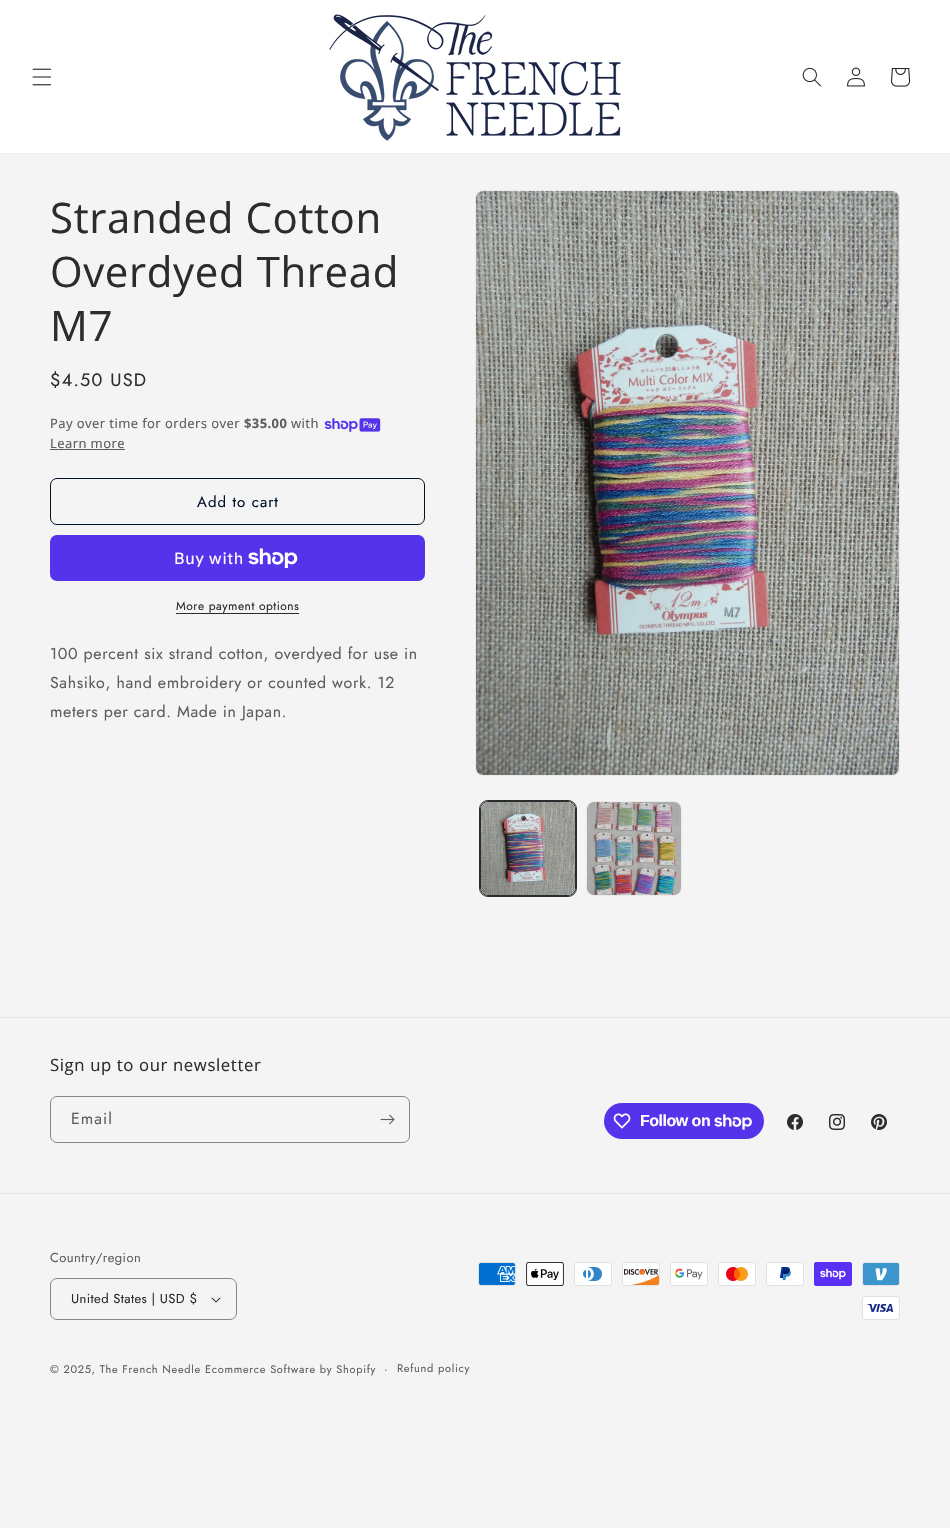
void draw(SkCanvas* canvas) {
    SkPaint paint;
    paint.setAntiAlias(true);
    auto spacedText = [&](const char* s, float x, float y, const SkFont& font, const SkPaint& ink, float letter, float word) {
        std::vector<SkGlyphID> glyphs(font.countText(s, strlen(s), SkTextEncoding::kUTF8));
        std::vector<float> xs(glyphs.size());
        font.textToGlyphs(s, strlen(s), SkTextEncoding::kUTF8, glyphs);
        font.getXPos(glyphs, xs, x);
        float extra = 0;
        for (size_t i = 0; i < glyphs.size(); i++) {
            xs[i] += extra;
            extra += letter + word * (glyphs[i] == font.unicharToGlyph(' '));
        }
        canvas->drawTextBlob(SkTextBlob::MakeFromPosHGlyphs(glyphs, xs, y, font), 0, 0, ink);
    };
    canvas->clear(0xFFF4F4F4);
    paint.setColor(0xFFFFFFFF);
    canvas->drawRect(SkRect::MakeXYWH(0, 0, 950, 153), paint);
    paint.setColor(0xFFEEEEEE);
    canvas->drawRect(SkRect::MakeXYWH(0, 153, 950, 1), paint);
    canvas->drawImageRect(SkImages::DeferredFromEncodedData(SkData::MakeFromFileName("img1.png")), SkRect::MakeXYWH(32, 68, 20, 18), SkSamplingOptions());
    canvas->drawImageRect(SkImages::DeferredFromEncodedData(SkData::MakeFromFileName("img2.png")), SkRect::MakeXYWH(329, 14, 292, 127), SkSamplingOptions());
    canvas->drawImageRect(SkImages::DeferredFromEncodedData(SkData::MakeFromFileName("img3.png")), SkRect::MakeXYWH(802, 67, 19, 20), SkSamplingOptions());
    canvas->drawImageRect(SkImages::DeferredFromEncodedData(SkData::MakeFromFileName("img4.png")), SkRect::MakeXYWH(847, 67, 18, 20), SkSamplingOptions());
    canvas->drawImageRect(SkImages::DeferredFromEncodedData(SkData::MakeFromFileName("img5.png")), SkRect::MakeXYWH(891, 68, 20, 19), SkSamplingOptions());
    SkFont font1(fontMgr->matchFamilyStyle("Open Sans", SkFontStyle::Normal()), 42);
    font1.setSubpixel(true);
    paint.setColor(0xFF2B2C2D);
    spacedText("Stranded Cotton", 50, 233, font1, paint, 0.6f, 0);
    spacedText("Overdyed Thread", 50, 287, font1, paint, 0.6f, 0);
    spacedText("M7", 50, 341, font1, paint, 0.6f, 0);
    SkFont font2(fontMgr->matchFamilyStyle("Jost", SkFontStyle::Normal()), 18);
    font2.setSubpixel(true);
    spacedText("$4.50 USD", 50, 386, font2, paint, 1.25f, 0);
    SkFont font3(fontMgr->matchFamilyStyle("Noto Sans", SkFontStyle::Normal()), 13);
    font3.setSubpixel(true);
    paint.setColor(0xFF5D5E5F);
    spacedText("Pay over time for orders over", 50, 428, font3, paint, 0.4f, 0);
    SkFont font4(fontMgr->matchFamilyStyle("Noto Sans", SkFontStyle::Bold()), 13);
    font4.setSubpixel(true);
    spacedText("$35.00", 244, 428, font4, paint, 0.4f, 0);
    spacedText("with", 291, 428, font3, paint, 0.4f, 0);
    canvas->drawImageRect(SkImages::DeferredFromEncodedData(SkData::MakeFromFileName("img6.png")), SkRect::MakeXYWH(324, 418, 57, 14), SkSamplingOptions());
    spacedText("Learn more", 50, 448, font3, paint, 0.4f, 0);
    canvas->drawRect(SkRect::MakeXYWH(50, 449, 75, 1), paint);
    paint.setStyle(SkPaint::kStroke_Style);
    paint.setStrokeWidth(1);
    paint.setColor(0xFF001128);
    canvas->drawRoundRect(SkRect::MakeXYWH(50.5f, 478.5f, 374, 46), 6.5f, 6.5f, paint);
    SkFont font5(fontMgr->matchFamilyStyle("Jost", SkFontStyle::Normal()), 15);
    font5.setSubpixel(true);
    paint.setStyle(SkPaint::kFill_Style);
    spacedText("Add to cart", 197, 507, font5, paint, 1, 0);
    paint.setColor(0xFF5433EB);
    canvas->drawRoundRect(SkRect::MakeXYWH(50, 535, 375, 46), 7, 7, paint);
    SkFont font6(fontMgr->matchFamilyStyle("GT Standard", SkFontStyle::Normal()), 16);
    font6.setSubpixel(true);
    paint.setColor(0xFFFFFFFF);
    spacedText("Buy with", 174, 564, font6, paint, 0.6f, 0);
    canvas->drawImageRect(SkImages::DeferredFromEncodedData(SkData::MakeFromFileName("img7.png")), SkRect::MakeXYWH(248, 548, 50, 20), SkSamplingOptions());
    SkFont font7(fontMgr->matchFamilyStyle("Jost", SkFontStyle::Normal()), 12);
    font7.setSubpixel(true);
    paint.setColor(0xFF2B2C2D);
    spacedText("More payment options", 176, 610, font7, paint, 0.5f, 0);
    canvas->drawRect(SkRect::MakeXYWH(176, 613, 123, 1), paint);
    SkFont font8(fontMgr->matchFamilyStyle("Jost", SkFontStyle::Normal()), 16);
    font8.setSubpixel(true);
    paint.setColor(0xFF5D5E5F);
    spacedText("100 percent six strand cotton, overdyed for use in", 50, 659, font8, paint, 0.6f, 0);
    spacedText("Sahsiko, hand embroidery or counted work. 12", 50, 688, font8, paint, 0.6f, 0);
    spacedText("meters per card. Made in Japan.", 50, 717, font8, paint, 0.6f, 0);
    paint.setStyle(SkPaint::kStroke_Style);
    paint.setColor(0xFFEAEAEA);
    canvas->drawRoundRect(SkRect::MakeXYWH(475.5f, 190.5f, 424, 585), 7.5f, 7.5f, paint);
    canvas->drawImageRect(SkImages::DeferredFromEncodedData(SkData::MakeFromFileName("img8.png")), SkRect::MakeXYWH(476, 191, 423, 584), SkSamplingOptions());
    paint.setColor(0xFF2B2C2D);
    canvas->drawRoundRect(SkRect::MakeXYWH(479.5f, 800.5f, 97, 96), 8.5f, 8.5f, paint);
    canvas->drawRoundRect(SkRect::MakeXYWH(480.5f, 801.5f, 95, 94), 7.5f, 7.5f, paint);
    canvas->drawImageRect(SkImages::DeferredFromEncodedData(SkData::MakeFromFileName("img9.png")), SkRect::MakeXYWH(481, 802, 94, 93), SkSamplingOptions());
    paint.setColor(0xFFEAEAEA);
    canvas->drawRoundRect(SkRect::MakeXYWH(586.5f, 801.5f, 95, 94), 7.5f, 7.5f, paint);
    canvas->drawImageRect(SkImages::DeferredFromEncodedData(SkData::MakeFromFileName("img10.png")), SkRect::MakeXYWH(587, 802, 94, 93), SkSamplingOptions());
    paint.setStyle(SkPaint::kFill_Style);
    paint.setColor(0xFFE4E4E4);
    canvas->drawRect(SkRect::MakeXYWH(0, 1017, 950, 1), paint);
    SkFont font9(fontMgr->matchFamilyStyle("Open Sans", SkFontStyle::Normal()), 16.75f);
    font9.setSubpixel(true);
    paint.setColor(0xFF2B2C2D);
    spacedText("Sign up to our newsletter", 50, 1071, font9, paint, 0.6f, 0);
    paint.setStyle(SkPaint::kStroke_Style);
    paint.setColor(0xFF858687);
    canvas->drawRoundRect(SkRect::MakeXYWH(50.5f, 1096.5f, 359, 46), 6.5f, 6.5f, paint);
    paint.setStyle(SkPaint::kFill_Style);
    paint.setColor(0xFF5D5E5F);
    spacedText("Email", 71, 1124, font8, paint, 1, 0);
    canvas->drawImageRect(SkImages::DeferredFromEncodedData(SkData::MakeFromFileName("img11.png")), SkRect::MakeXYWH(380, 1114, 15, 11), SkSamplingOptions());
    paint.setColor(0xFF5433EB);
    canvas->drawRoundRect(SkRect::MakeXYWH(604, 1103, 160, 36), 18, 18, paint);
    canvas->drawImageRect(SkImages::DeferredFromEncodedData(SkData::MakeFromFileName("img12.png")), SkRect::MakeXYWH(613, 1113, 18, 16), SkSamplingOptions());
    SkFont font10(fontMgr->matchFamilyStyle("Liberation Sans", SkFontStyle::Bold()), 16);
    font10.setSubpixel(true);
    paint.setColor(0xFFFFFFFF);
    spacedText("Follow on", 640, 1126, font10, paint, -0.5f, 0);
    canvas->drawImageRect(SkImages::DeferredFromEncodedData(SkData::MakeFromFileName("img13.png")), SkRect::MakeXYWH(714, 1114, 38, 16), SkSamplingOptions());
    canvas->drawImageRect(SkImages::DeferredFromEncodedData(SkData::MakeFromFileName("img14.png")), SkRect::MakeXYWH(787, 1114, 16, 16), SkSamplingOptions());
    canvas->drawImageRect(SkImages::DeferredFromEncodedData(SkData::MakeFromFileName("img15.png")), SkRect::MakeXYWH(829, 1114, 16, 16), SkSamplingOptions());
    canvas->drawImageRect(SkImages::DeferredFromEncodedData(SkData::MakeFromFileName("img16.png")), SkRect::MakeXYWH(871, 1114, 16, 16), SkSamplingOptions());
    paint.setColor(0xFFE4E4E4);
    canvas->drawRect(SkRect::MakeXYWH(0, 1193, 950, 1), paint);
    SkFont font11(fontMgr->matchFamilyStyle("Jost", SkFontStyle::Normal()), 13);
    font11.setSubpixel(true);
    paint.setColor(0xFF5D5E5F);
    spacedText("Country/region", 50, 1262, font11, paint, 0.4f, 0);
    canvas->drawImageRect(SkImages::DeferredFromEncodedData(SkData::MakeFromFileName("img17.png")), SkRect::MakeXYWH(211, 1297, 10, 6), SkSamplingOptions());
    paint.setStyle(SkPaint::kStroke_Style);
    paint.setColor(0xFF858687);
    canvas->drawRoundRect(SkRect::MakeXYWH(50.5f, 1278.5f, 186, 41), 6.5f, 6.5f, paint);
    paint.setStyle(SkPaint::kFill_Style);
    paint.setColor(0xFF2B2C2D);
    spacedText("United States | USD $", 71, 1303, font11, paint, 0.4f, 0);
    canvas->drawImageRect(SkImages::DeferredFromEncodedData(SkData::MakeFromFileName("img18.png")), SkRect::MakeXYWH(478, 1262, 38, 24), SkSamplingOptions());
    canvas->drawImageRect(SkImages::DeferredFromEncodedData(SkData::MakeFromFileName("img19.png")), SkRect::MakeXYWH(526, 1262, 38, 24), SkSamplingOptions());
    canvas->drawImageRect(SkImages::DeferredFromEncodedData(SkData::MakeFromFileName("img20.png")), SkRect::MakeXYWH(574, 1262, 38, 24), SkSamplingOptions());
    canvas->drawImageRect(SkImages::DeferredFromEncodedData(SkData::MakeFromFileName("img21.png")), SkRect::MakeXYWH(622, 1262, 38, 24), SkSamplingOptions());
    canvas->drawImageRect(SkImages::DeferredFromEncodedData(SkData::MakeFromFileName("img22.png")), SkRect::MakeXYWH(670, 1262, 38, 24), SkSamplingOptions());
    canvas->drawImageRect(SkImages::DeferredFromEncodedData(SkData::MakeFromFileName("img23.png")), SkRect::MakeXYWH(718, 1262, 38, 24), SkSamplingOptions());
    canvas->drawImageRect(SkImages::DeferredFromEncodedData(SkData::MakeFromFileName("img24.png")), SkRect::MakeXYWH(766, 1262, 38, 24), SkSamplingOptions());
    canvas->drawImageRect(SkImages::DeferredFromEncodedData(SkData::MakeFromFileName("img25.png")), SkRect::MakeXYWH(814, 1262, 38, 24), SkSamplingOptions());
    canvas->drawImageRect(SkImages::DeferredFromEncodedData(SkData::MakeFromFileName("img26.png")), SkRect::MakeXYWH(862, 1262, 38, 24), SkSamplingOptions());
    canvas->drawImageRect(SkImages::DeferredFromEncodedData(SkData::MakeFromFileName("img27.png")), SkRect::MakeXYWH(862, 1296, 38, 24), SkSamplingOptions());
    SkFont font12(fontMgr->matchFamilyStyle("Jost", SkFontStyle::Normal()), 11);
    font12.setSubpixel(true);
    paint.setColor(0xFF5D5E5F);
    spacedText("© 2025, The French Needle", 50, 1373, font12, paint, 0.7f, 0);
    spacedText("Ecommerce Software by Shopify", 205, 1373, font12, paint, 0.7f, 0);
    spacedText("·", 384, 1373, font7, paint, 0.7f, 0);
    spacedText("Refund policy", 397, 1372, font12, paint, 0.7f, 0);
}
